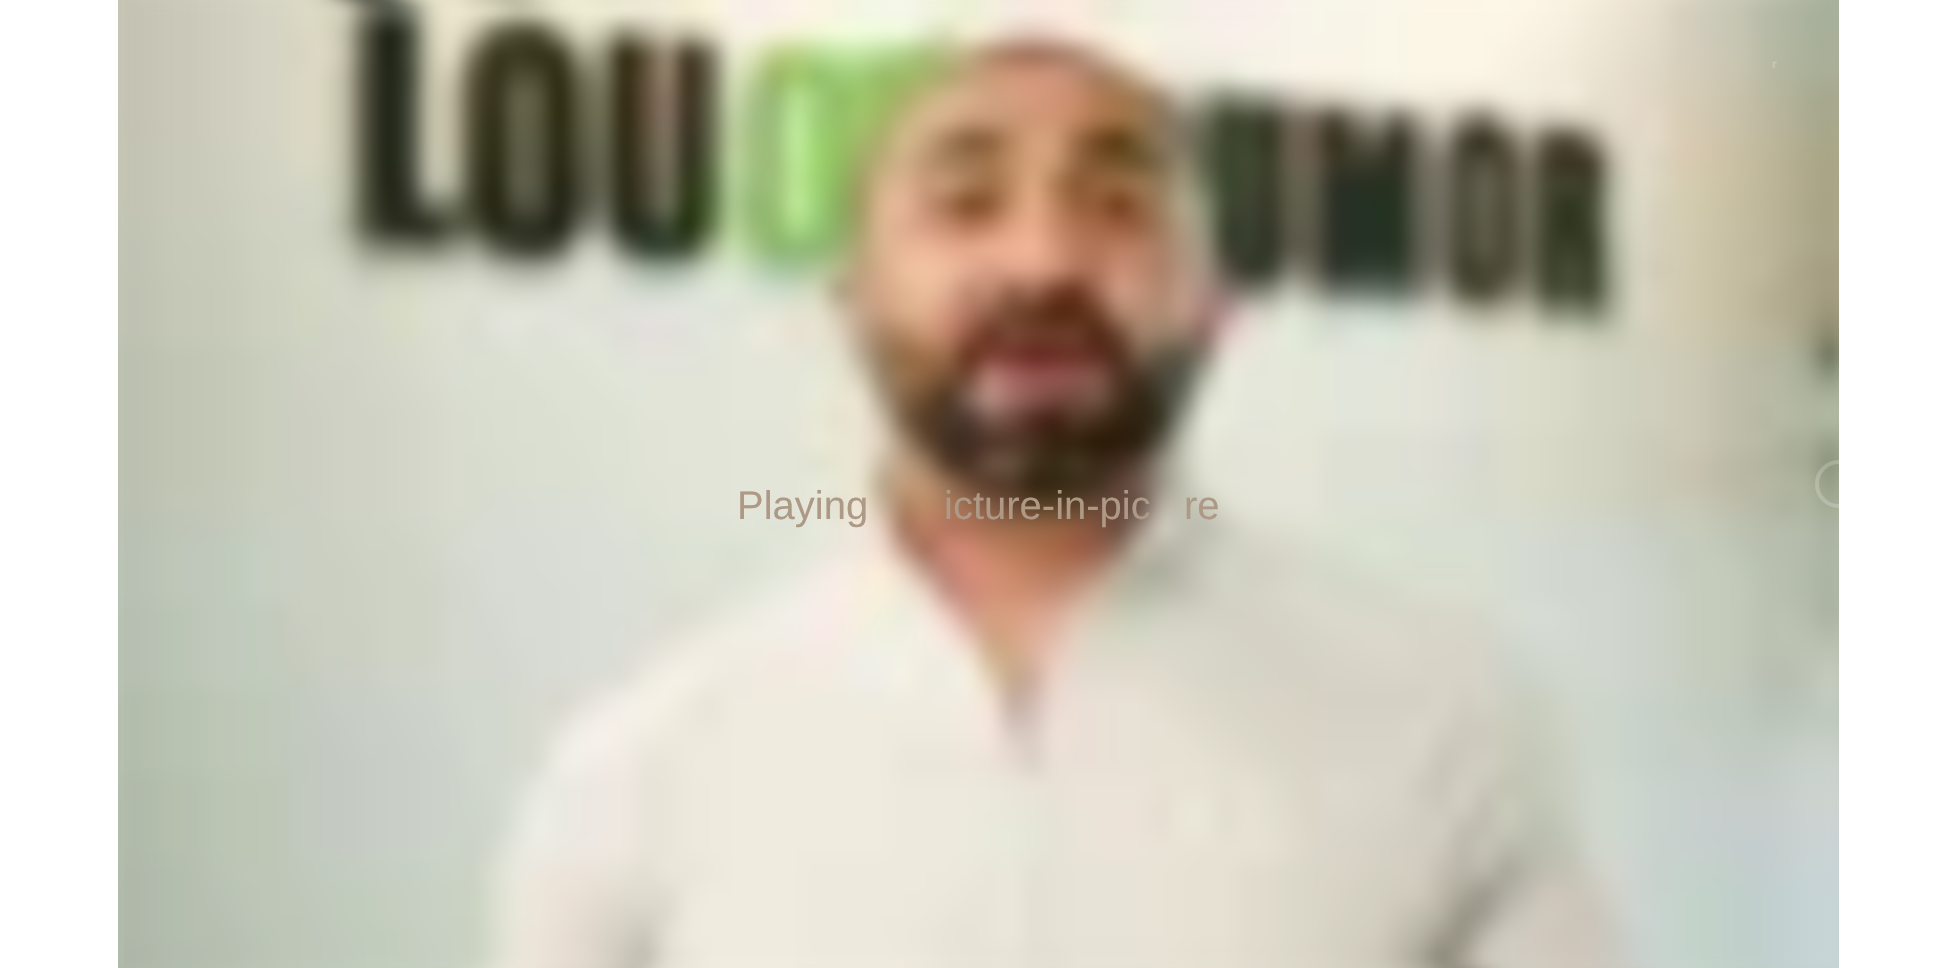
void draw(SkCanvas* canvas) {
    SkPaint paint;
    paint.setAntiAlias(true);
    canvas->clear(0xFFFFFFFF);
    canvas->drawImageRect(SkImages::DeferredFromEncodedData(SkData::MakeFromFileName("img1.png")), SkRect::MakeXYWH(118, 0, 1721, 968), SkSamplingOptions());
    canvas->drawImageRect(SkImages::DeferredFromEncodedData(SkData::MakeFromFileName("img2.png")), SkRect::MakeXYWH(124, 0, 1715, 968), SkSamplingOptions());
    SkFont font1(fontMgr->matchFamilyStyle("Liberation Sans", SkFontStyle::Bold()), 12);
    font1.setSubpixel(true);
    paint.setColor(0xFFCBC7B3);
    canvas->drawString("r", 1772, 68, font1, paint);
    SkFont font2(fontMgr->matchFamilyStyle("Liberation Sans", SkFontStyle::Normal()), 40);
    font2.setSubpixel(true);
    paint.setColor(0xFFAD9986);
    canvas->drawString("Playing", 737, 519, font2, paint);
    canvas->drawString("icture-in-pic", 944, 519, font2, paint);
    canvas->drawString("re", 1184, 519, font2, paint);
    paint.setStyle(SkPaint::kStroke_Style);
    paint.setStrokeWidth(4);
    paint.setColor(0x33FFFFFF);
    canvas->drawCircle(1839, 484, 22, paint);
}
